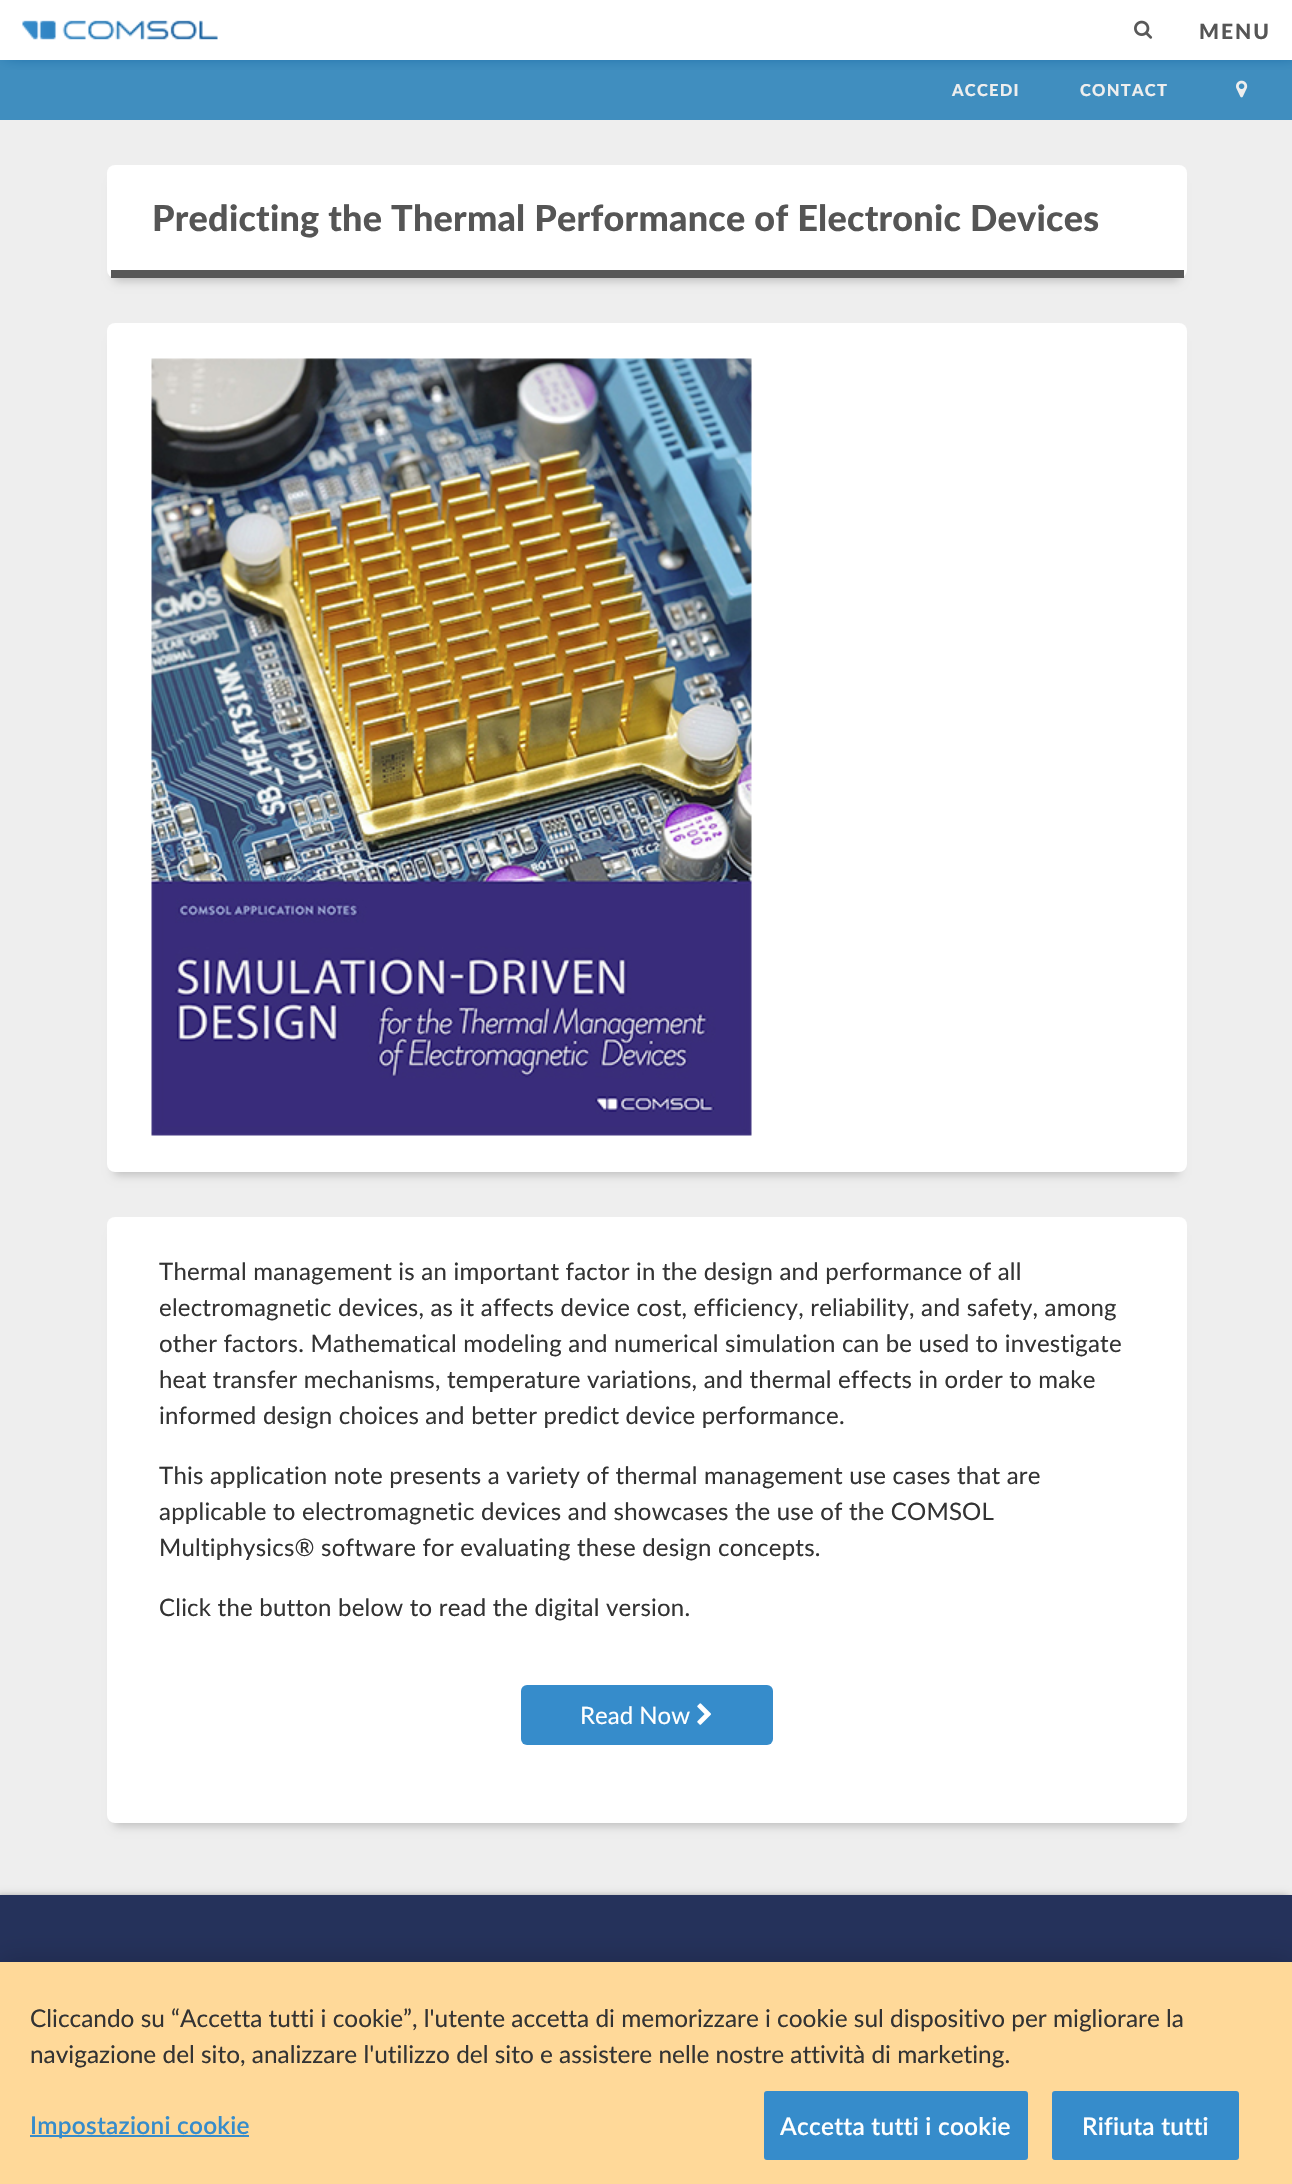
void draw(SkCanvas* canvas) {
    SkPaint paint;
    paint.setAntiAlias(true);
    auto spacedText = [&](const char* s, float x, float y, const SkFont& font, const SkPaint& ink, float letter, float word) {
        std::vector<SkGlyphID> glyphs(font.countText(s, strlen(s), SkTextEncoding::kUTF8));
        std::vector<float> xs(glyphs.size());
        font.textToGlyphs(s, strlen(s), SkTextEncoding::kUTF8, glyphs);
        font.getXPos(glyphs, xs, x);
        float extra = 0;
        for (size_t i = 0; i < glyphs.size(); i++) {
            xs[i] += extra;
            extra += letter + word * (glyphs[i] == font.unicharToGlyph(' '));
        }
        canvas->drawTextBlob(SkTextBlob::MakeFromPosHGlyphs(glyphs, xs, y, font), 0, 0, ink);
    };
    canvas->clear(0xFFFFFFFF);
    paint.setColor(0xFF408EBF);
    canvas->drawRect(SkRect::MakeXYWH(0, 60, 1292, 60), paint);
    canvas->save();
    canvas->clipRect(SkRect::MakeXYWH(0, 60, 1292, 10));
    paint.setColor(0xFF005596);
    paint.setMaskFilter(SkMaskFilter::MakeBlur(kNormal_SkBlurStyle, 8));
    canvas->drawRect(SkRect::MakeXYWH(5, -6, 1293, 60), paint);
    paint.setMaskFilter(nullptr);
    canvas->restore();
    canvas->drawImageRect(SkImages::DeferredFromEncodedData(SkData::MakeFromFileName("img1.png")), SkRect::MakeXYWH(22, 20, 196, 20), SkSamplingOptions());
    canvas->drawImageRect(SkImages::DeferredFromEncodedData(SkData::MakeFromFileName("img2.png")), SkRect::MakeXYWH(1134, 20, 19, 19), SkSamplingOptions());
    SkFont font1(fontMgr->matchFamilyStyle("Lato", SkFontStyle(900, SkFontStyle::kNormal_Width, SkFontStyle::kUpright_Slant)), 21);
    font1.setSubpixel(true);
    paint.setColor(0xFF555555);
    spacedText("MENU", 1199, 39, font1, paint, 2, 0);
    SkFont font2(fontMgr->matchFamilyStyle("Lato", SkFontStyle(900, SkFontStyle::kNormal_Width, SkFontStyle::kUpright_Slant)), 16.5f);
    font2.setSubpixel(true);
    paint.setColor(0xFFEEEEEE);
    spacedText("ACCEDI", 952, 96, font2, paint, 1.25f, 0);
    spacedText("CONTACT", 1080, 96, font2, paint, 1.25f, 0);
    canvas->drawImageRect(SkImages::DeferredFromEncodedData(SkData::MakeFromFileName("img3.png")), SkRect::MakeXYWH(1236, 80, 12, 18), SkSamplingOptions());
    canvas->drawRect(SkRect::MakeXYWH(0, 120, 1292, 1775), paint);
    paint.setColor(0x33000000);
    paint.setMaskFilter(SkMaskFilter::MakeBlur(kNormal_SkBlurStyle, 4.5f));
    canvas->drawRect(SkRect::MakeXYWH(114, 183, 1065, 98), paint);
    paint.setMaskFilter(nullptr);
    paint.setColor(0xFFFFFFFF);
    canvas->drawRoundRect(SkRect::MakeXYWH(107, 165, 1080, 113), 8, 8, paint);
    paint.setColor(0xFF585858);
    canvas->drawRect(SkRect::MakeXYWH(111, 270, 1073, 8), paint);
    SkFont font3(fontMgr->matchFamilyStyle("Lato", SkFontStyle(900, SkFontStyle::kNormal_Width, SkFontStyle::kUpright_Slant)), 36);
    font3.setSubpixel(true);
    paint.setColor(0xFF555555);
    spacedText("Predicting the Thermal Performance of Electronic Devices", 152, 231, font3, paint, 0.22f, 0);
    paint.setColor(0x33000000);
    paint.setMaskFilter(SkMaskFilter::MakeBlur(kNormal_SkBlurStyle, 4.5f));
    canvas->drawRect(SkRect::MakeXYWH(114, 341, 1065, 834), paint);
    paint.setMaskFilter(nullptr);
    paint.setColor(0xFFFFFFFF);
    canvas->drawRoundRect(SkRect::MakeXYWH(107, 323, 1080, 849), 8, 8, paint);
    canvas->drawImageRect(SkImages::DeferredFromEncodedData(SkData::MakeFromFileName("img4.png")), SkRect::MakeXYWH(151, 358, 601, 778), SkSamplingOptions());
    paint.setColor(0x33000000);
    paint.setMaskFilter(SkMaskFilter::MakeBlur(kNormal_SkBlurStyle, 4.5f));
    canvas->drawRect(SkRect::MakeXYWH(114, 1235, 1065, 591), paint);
    paint.setMaskFilter(nullptr);
    paint.setColor(0xFFFFFFFF);
    canvas->drawRoundRect(SkRect::MakeXYWH(107, 1217, 1080, 606), 8, 8, paint);
    SkFont font4(fontMgr->matchFamilyStyle("Lato", SkFontStyle::Normal()), 24);
    font4.setSubpixel(true);
    paint.setColor(0xFF333333);
    spacedText("Thermal management is an important factor in the design and performance of all", 159, 1280, font4, paint, 0.22f, 0);
    spacedText("electromagnetic devices, as it affects device cost, efficiency, reliability, and safety, among", 159, 1316, font4, paint, 0.22f, 0);
    spacedText("other factors. Mathematical modeling and numerical simulation can be used to investigate", 159, 1352, font4, paint, 0.22f, 0);
    spacedText("heat transfer mechanisms, temperature variations, and thermal effects in order to make", 159, 1388, font4, paint, 0.22f, 0);
    spacedText("informed design choices and better predict device performance.", 159, 1424, font4, paint, 0.22f, 0);
    spacedText("This application note presents a variety of thermal management use cases that are", 159, 1484, font4, paint, 0.22f, 0);
    spacedText("applicable to electromagnetic devices and showcases the use of the COMSOL", 159, 1520, font4, paint, 0.22f, 0);
    spacedText("Multiphysics® software for evaluating these design concepts.", 159, 1556, font4, paint, 0.22f, 0);
    spacedText("Click the button below to read the digital version.", 159, 1616, font4, paint, 0.22f, 0);
    paint.setColor(0xFF368CCB);
    canvas->drawRoundRect(SkRect::MakeXYWH(521, 1685, 252, 60), 6, 6, paint);
    paint.setColor(0xFFFFFFFF);
    canvas->drawString("Read Now", 580, 1724, font4, paint);
    canvas->drawImageRect(SkImages::DeferredFromEncodedData(SkData::MakeFromFileName("img5.png")), SkRect::MakeXYWH(697, 1703, 14, 22), SkSamplingOptions());
    paint.setColor(0x8C000000);
    paint.setMaskFilter(SkMaskFilter::MakeBlur(kNormal_SkBlurStyle, 4.5f));
    canvas->drawRect(SkRect::MakeXYWH(-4, 1898, 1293, 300), paint);
    paint.setMaskFilter(nullptr);
    paint.setColor(0xFF25325B);
    canvas->drawRect(SkRect::MakeXYWH(0, 1895, 1292, 67), paint);
    paint.setColor(0x33000000);
    paint.setMaskFilter(SkMaskFilter::MakeBlur(kNormal_SkBlurStyle, 13.5f));
    canvas->drawRect(SkRect::MakeXYWH(0, 1962, 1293, 222), paint);
    paint.setMaskFilter(nullptr);
    paint.setColor(0xFFFFD999);
    canvas->drawRect(SkRect::MakeXYWH(0, 1962, 1292, 222), paint);
    SkFont font5(fontMgr->matchFamilyStyle("Lato", SkFontStyle::Normal()), 24.4f);
    font5.setSubpixel(true);
    paint.setColor(0xFF333333);
    canvas->drawString("Cliccando su “Accetta tutti i cookie”, l'utente accetta di memorizzare i cookie sul dispositivo per migliorare la", 30, 2027, font5, paint);
    canvas->drawString("navigazione del sito, analizzare l'utilizzo del sito e assistere nelle nostre attività di marketing.", 30, 2063, font5, paint);
    paint.setColor(0xFF368CCB);
    canvas->drawRect(SkRect::MakeXYWH(30, 2135, 219, 2), paint);
    SkFont font6(fontMgr->matchFamilyStyle("Lato", SkFontStyle(600, SkFontStyle::kNormal_Width, SkFontStyle::kUpright_Slant)), 24.4f);
    font6.setSubpixel(true);
    spacedText("Impostazioni cookie", 30, 2134, font6, paint, 0.25f, 0);
    canvas->drawRoundRect(SkRect::MakeXYWH(765, 2092, 262, 67), 2, 2, paint);
    paint.setStyle(SkPaint::kStroke_Style);
    paint.setStrokeWidth(2);
    canvas->drawRoundRect(SkRect::MakeXYWH(765, 2092, 262, 67), 2, 2, paint);
    paint.setStyle(SkPaint::kFill_Style);
    paint.setColor(0xFFFFFFFF);
    spacedText("Accetta tutti i cookie", 780, 2135, font6, paint, 0.25f, 0);
    paint.setColor(0xFF368CCB);
    canvas->drawRoundRect(SkRect::MakeXYWH(1053, 2092, 185, 67), 2, 2, paint);
    paint.setStyle(SkPaint::kStroke_Style);
    canvas->drawRoundRect(SkRect::MakeXYWH(1053, 2092, 185, 67), 2, 2, paint);
    paint.setStyle(SkPaint::kFill_Style);
    paint.setColor(0xFFFFFFFF);
    spacedText("Rifiuta tutti", 1082, 2135, font6, paint, 0.25f, 0);
}
